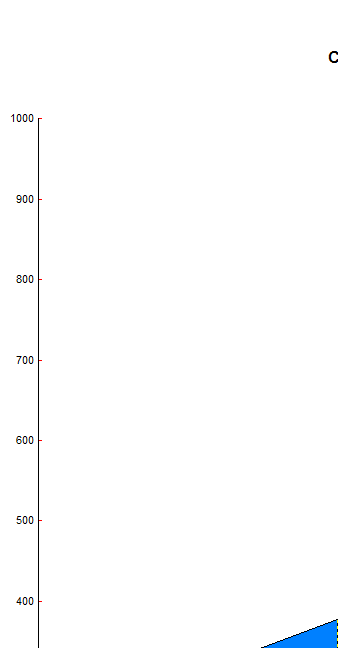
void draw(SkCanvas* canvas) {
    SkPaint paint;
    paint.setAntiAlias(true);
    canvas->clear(0xFFFFFFFF);
    canvas->drawImageRect(SkImages::DeferredFromEncodedData(SkData::MakeFromFileName("img1.png")), SkRect::MakeXYWH(10, 51, 328, 597), SkSamplingOptions());
}
